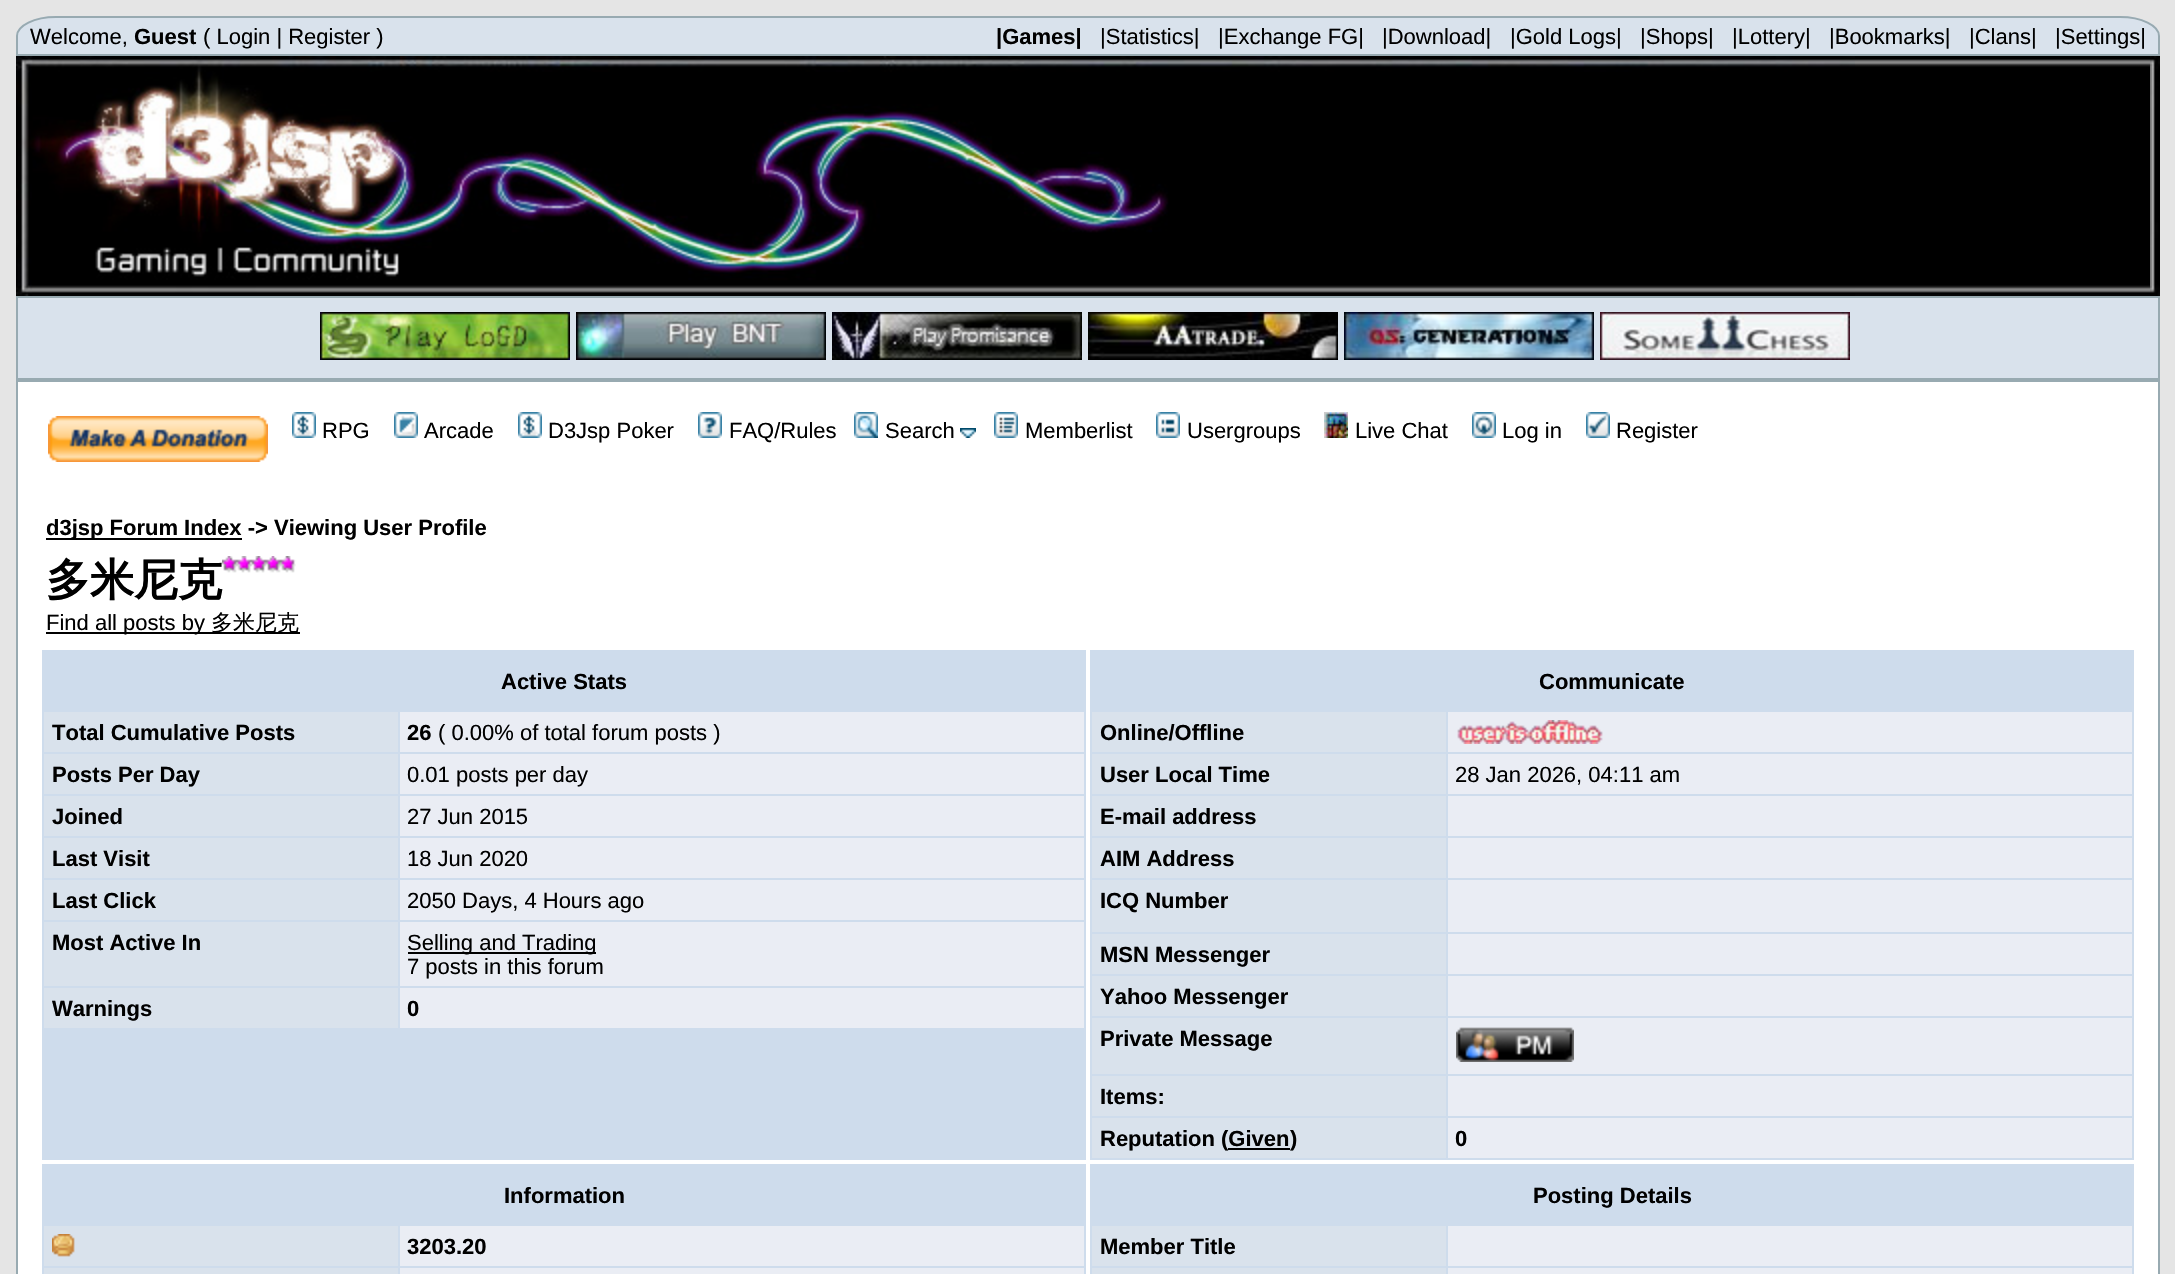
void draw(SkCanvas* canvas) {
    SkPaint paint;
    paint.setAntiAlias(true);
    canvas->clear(0xFFE5E5E5);
    paint.setColor(0xFFD9E2EC);
    canvas->drawPath(SkPathBuilder().moveTo(56, 16).lineTo(2120, 16).cubicTo(2142, 16, 2160, 25, 2160, 36).lineTo(2160, 56).lineTo(16, 56).lineTo(16, 36).cubicTo(16, 25, 34, 16, 56, 16).close().detach(), paint);
    paint.setStyle(SkPaint::kStroke_Style);
    paint.setStrokeWidth(2);
    paint.setColor(0xFF98AAB1);
    canvas->drawPath(SkPathBuilder().moveTo(56, 17).lineTo(2120, 17).cubicTo(2141.5f, 17, 2159, 25.5f, 2159, 36).lineTo(2159, 55).lineTo(17, 55).lineTo(17, 36).cubicTo(17, 25.5f, 34.5f, 17, 56, 17).close().detach(), paint);
    SkFont font1(fontMgr->matchFamilyStyle("Liberation Sans", SkFontStyle::Normal()), 22);
    font1.setSubpixel(true);
    paint.setStyle(SkPaint::kFill_Style);
    paint.setColor(0xFF000000);
    canvas->drawString("Welcome,", 30, 44, font1, paint);
    SkFont font2(fontMgr->matchFamilyStyle("Liberation Sans", SkFontStyle::Bold()), 22);
    font2.setSubpixel(true);
    canvas->drawString("Guest", 134, 44, font2, paint);
    canvas->drawString("( Login | Register )", 203, 44, font1, paint);
    canvas->drawString("|Games|", 996, 44, font2, paint);
    canvas->drawString("|Statistics|", 1100, 44, font1, paint);
    canvas->drawString("|Exchange FG|", 1218, 44, font1, paint);
    canvas->drawString("|Download|", 1382, 44, font1, paint);
    canvas->drawString("|Gold Logs|", 1510, 44, font1, paint);
    canvas->drawString("|Shops|", 1640, 44, font1, paint);
    canvas->drawString("|Lottery|", 1732, 44, font1, paint);
    canvas->drawString("|Bookmarks|", 1829, 44, font1, paint);
    canvas->drawString("|Clans|", 1969, 44, font1, paint);
    canvas->drawString("|Settings|", 2055, 44, font1, paint);
    canvas->drawRect(SkRect::MakeXYWH(1855, 56, 295, 3), paint);
    canvas->drawImageRect(SkImages::DeferredFromEncodedData(SkData::MakeFromFileName("img1.png")), SkRect::MakeXYWH(1855, 59, 295, 237), SkSamplingOptions());
    canvas->drawImageRect(SkImages::DeferredFromEncodedData(SkData::MakeFromFileName("img2.png")), SkRect::MakeXYWH(16, 56, 1839, 240), SkSamplingOptions());
    canvas->drawImageRect(SkImages::DeferredFromEncodedData(SkData::MakeFromFileName("img3.png")), SkRect::MakeXYWH(2150, 56, 10, 240), SkSamplingOptions());
    paint.setStyle(SkPaint::kStroke_Style);
    paint.setColor(0xFF98AAB1);
    canvas->drawRect(SkRect::MakeXYWH(17, 297, 2142, 82), paint);
    paint.setStyle(SkPaint::kFill_Style);
    paint.setColor(0xFFD9E2EC);
    canvas->drawRect(SkRect::MakeXYWH(18, 298, 2140, 80), paint);
    canvas->drawImageRect(SkImages::DeferredFromEncodedData(SkData::MakeFromFileName("img4.png")), SkRect::MakeXYWH(320, 312, 250, 48), SkSamplingOptions());
    canvas->drawImageRect(SkImages::DeferredFromEncodedData(SkData::MakeFromFileName("img5.png")), SkRect::MakeXYWH(576, 312, 250, 48), SkSamplingOptions());
    canvas->drawImageRect(SkImages::DeferredFromEncodedData(SkData::MakeFromFileName("img6.png")), SkRect::MakeXYWH(832, 312, 250, 48), SkSamplingOptions());
    canvas->drawImageRect(SkImages::DeferredFromEncodedData(SkData::MakeFromFileName("img7.png")), SkRect::MakeXYWH(1088, 312, 250, 48), SkSamplingOptions());
    canvas->drawImageRect(SkImages::DeferredFromEncodedData(SkData::MakeFromFileName("img8.png")), SkRect::MakeXYWH(1344, 312, 250, 48), SkSamplingOptions());
    canvas->drawImageRect(SkImages::DeferredFromEncodedData(SkData::MakeFromFileName("img9.png")), SkRect::MakeXYWH(1600, 312, 250, 48), SkSamplingOptions());
    paint.setColor(0xFFFFFFFF);
    canvas->drawRect(SkRect::MakeXYWH(17, 381, 2142, 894), paint);
    paint.setStyle(SkPaint::kStroke_Style);
    paint.setColor(0xFF98AAB1);
    canvas->drawRect(SkRect::MakeXYWH(17, 381, 2142, 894), paint);
    canvas->drawImageRect(SkImages::DeferredFromEncodedData(SkData::MakeFromFileName("img10.png")), SkRect::MakeXYWH(48, 416, 220, 46), SkSamplingOptions());
    canvas->drawImageRect(SkImages::DeferredFromEncodedData(SkData::MakeFromFileName("img11.png")), SkRect::MakeXYWH(292, 412, 24, 26), SkSamplingOptions());
    paint.setStyle(SkPaint::kFill_Style);
    paint.setColor(0xFF000000);
    canvas->drawString("RPG", 322, 438, font1, paint);
    canvas->drawImageRect(SkImages::DeferredFromEncodedData(SkData::MakeFromFileName("img12.png")), SkRect::MakeXYWH(394, 412, 24, 26), SkSamplingOptions());
    canvas->drawString("Arcade", 424, 438, font1, paint);
    canvas->drawImageRect(SkImages::DeferredFromEncodedData(SkData::MakeFromFileName("img11.png")), SkRect::MakeXYWH(518, 412, 24, 26), SkSamplingOptions());
    canvas->drawString("D3Jsp Poker", 548, 438, font1, paint);
    canvas->drawImageRect(SkImages::DeferredFromEncodedData(SkData::MakeFromFileName("img13.png")), SkRect::MakeXYWH(698, 412, 24, 26), SkSamplingOptions());
    canvas->drawString("FAQ/Rules", 729, 438, font1, paint);
    canvas->drawImageRect(SkImages::DeferredFromEncodedData(SkData::MakeFromFileName("img14.png")), SkRect::MakeXYWH(854, 412, 24, 26), SkSamplingOptions());
    canvas->drawString("Search", 885, 438, font1, paint);
    canvas->drawImageRect(SkImages::DeferredFromEncodedData(SkData::MakeFromFileName("img15.png")), SkRect::MakeXYWH(960, 428, 16, 10), SkSamplingOptions());
    canvas->drawImageRect(SkImages::DeferredFromEncodedData(SkData::MakeFromFileName("img16.png")), SkRect::MakeXYWH(994, 412, 24, 26), SkSamplingOptions());
    canvas->drawString("Memberlist", 1025, 438, font1, paint);
    canvas->drawImageRect(SkImages::DeferredFromEncodedData(SkData::MakeFromFileName("img17.png")), SkRect::MakeXYWH(1156, 412, 24, 26), SkSamplingOptions());
    canvas->drawString("Usergroups", 1187, 438, font1, paint);
    canvas->drawImageRect(SkImages::DeferredFromEncodedData(SkData::MakeFromFileName("img18.png")), SkRect::MakeXYWH(1324, 412, 24, 26), SkSamplingOptions());
    canvas->drawString("Live Chat", 1355, 438, font1, paint);
    canvas->drawImageRect(SkImages::DeferredFromEncodedData(SkData::MakeFromFileName("img19.png")), SkRect::MakeXYWH(1472, 412, 24, 26), SkSamplingOptions());
    canvas->drawString("Log in", 1502, 438, font1, paint);
    canvas->drawImageRect(SkImages::DeferredFromEncodedData(SkData::MakeFromFileName("img20.png")), SkRect::MakeXYWH(1586, 412, 24, 26), SkSamplingOptions());
    canvas->drawString("Register", 1616, 438, font1, paint);
    canvas->drawRect(SkRect::MakeXYWH(46, 538, 196, 2), paint);
    canvas->drawString("d3jsp Forum Index -> Viewing User Profile", 46, 535, font2, paint);
    SkFont font3(fontMgr->matchFamilyStyle("WenQuanYi Zen Hei", SkFontStyle::Bold()), 44);
    font3.setSubpixel(true);
    canvas->drawString("多米尼克", 46, 595, font3, paint);
    canvas->drawImageRect(SkImages::DeferredFromEncodedData(SkData::MakeFromFileName("img21.png")), SkRect::MakeXYWH(222, 556, 74, 17), SkSamplingOptions());
    canvas->drawRect(SkRect::MakeXYWH(46, 632, 254, 2), paint);
    canvas->drawString("Find all posts by", 46, 630, font1, paint);
    SkFont font4(fontMgr->matchFamilyStyle("WenQuanYi Zen Hei", SkFontStyle(500, SkFontStyle::kNormal_Width, SkFontStyle::kUpright_Slant)), 22);
    font4.setSubpixel(true);
    canvas->drawString("多米尼克", 211, 630, font4, paint);
    paint.setColor(0xFFCEDCEC);
    canvas->drawRect(SkRect::MakeXYWH(42, 650, 1044, 510), paint);
    paint.setColor(0xFF000000);
    canvas->drawString("Active Stats", 501, 689, font2, paint);
    paint.setColor(0xFFD9E2EC);
    canvas->drawRect(SkRect::MakeXYWH(44, 712, 354, 40), paint);
    paint.setColor(0xFF000000);
    canvas->drawString("Total Cumulative Posts", 52, 740, font2, paint);
    paint.setColor(0xFFEAEDF4);
    canvas->drawRect(SkRect::MakeXYWH(400, 712, 684, 40), paint);
    paint.setColor(0xFF000000);
    canvas->drawString("26", 407, 740, font2, paint);
    canvas->drawString("( 0.00% of total forum posts )", 438, 740, font1, paint);
    paint.setColor(0xFFD9E2EC);
    canvas->drawRect(SkRect::MakeXYWH(44, 754, 354, 40), paint);
    paint.setColor(0xFF000000);
    canvas->drawString("Posts Per Day", 52, 782, font2, paint);
    paint.setColor(0xFFEAEDF4);
    canvas->drawRect(SkRect::MakeXYWH(400, 754, 684, 40), paint);
    paint.setColor(0xFF000000);
    canvas->drawString("0.01 posts per day", 407, 782, font1, paint);
    paint.setColor(0xFFD9E2EC);
    canvas->drawRect(SkRect::MakeXYWH(44, 796, 354, 40), paint);
    paint.setColor(0xFF000000);
    canvas->drawString("Joined", 52, 824, font2, paint);
    paint.setColor(0xFFEAEDF4);
    canvas->drawRect(SkRect::MakeXYWH(400, 796, 684, 40), paint);
    paint.setColor(0xFF000000);
    canvas->drawString("27 Jun 2015", 407, 824, font1, paint);
    paint.setColor(0xFFD9E2EC);
    canvas->drawRect(SkRect::MakeXYWH(44, 838, 354, 40), paint);
    paint.setColor(0xFF000000);
    canvas->drawString("Last Visit", 52, 866, font2, paint);
    paint.setColor(0xFFEAEDF4);
    canvas->drawRect(SkRect::MakeXYWH(400, 838, 684, 40), paint);
    paint.setColor(0xFF000000);
    canvas->drawString("18 Jun 2020", 407, 866, font1, paint);
    paint.setColor(0xFFD9E2EC);
    canvas->drawRect(SkRect::MakeXYWH(44, 880, 354, 40), paint);
    paint.setColor(0xFF000000);
    canvas->drawString("Last Click", 52, 908, font2, paint);
    paint.setColor(0xFFEAEDF4);
    canvas->drawRect(SkRect::MakeXYWH(400, 880, 684, 40), paint);
    paint.setColor(0xFF000000);
    canvas->drawString("2050 Days, 4 Hours ago", 407, 908, font1, paint);
    paint.setColor(0xFFD9E2EC);
    canvas->drawRect(SkRect::MakeXYWH(44, 922, 354, 64), paint);
    paint.setColor(0xFF000000);
    canvas->drawString("Most Active In", 52, 950, font2, paint);
    paint.setColor(0xFFEAEDF4);
    canvas->drawRect(SkRect::MakeXYWH(400, 922, 684, 64), paint);
    paint.setColor(0xFF000000);
    canvas->drawRect(SkRect::MakeXYWH(408, 952, 188, 2), paint);
    canvas->drawString("Selling and Trading", 407, 950, font1, paint);
    canvas->drawString("7 posts in this forum", 407, 974, font1, paint);
    paint.setColor(0xFFD9E2EC);
    canvas->drawRect(SkRect::MakeXYWH(44, 988, 354, 40), paint);
    paint.setColor(0xFF000000);
    canvas->drawString("Warnings", 52, 1016, font2, paint);
    paint.setColor(0xFFEAEDF4);
    canvas->drawRect(SkRect::MakeXYWH(400, 988, 684, 40), paint);
    paint.setColor(0xFF000000);
    canvas->drawString("0", 407, 1016, font2, paint);
    paint.setColor(0xFFCEDCEC);
    canvas->drawRect(SkRect::MakeXYWH(1090, 650, 1044, 510), paint);
    paint.setColor(0xFF000000);
    canvas->drawString("Communicate", 1539, 689, font2, paint);
    paint.setColor(0xFFD9E2EC);
    canvas->drawRect(SkRect::MakeXYWH(1092, 712, 354, 40), paint);
    paint.setColor(0xFF000000);
    canvas->drawString("Online/Offline", 1100, 740, font2, paint);
    paint.setColor(0xFFEAEDF4);
    canvas->drawRect(SkRect::MakeXYWH(1448, 712, 684, 40), paint);
    canvas->drawImageRect(SkImages::DeferredFromEncodedData(SkData::MakeFromFileName("img22.png")), SkRect::MakeXYWH(1457, 720, 146, 24), SkSamplingOptions());
    paint.setColor(0xFFD9E2EC);
    canvas->drawRect(SkRect::MakeXYWH(1092, 754, 354, 40), paint);
    paint.setColor(0xFF000000);
    canvas->drawString("User Local Time", 1100, 782, font2, paint);
    paint.setColor(0xFFEAEDF4);
    canvas->drawRect(SkRect::MakeXYWH(1448, 754, 684, 40), paint);
    paint.setColor(0xFF000000);
    canvas->drawString("28 Jan 2026, 04:11 am", 1455, 782, font1, paint);
    paint.setColor(0xFFD9E2EC);
    canvas->drawRect(SkRect::MakeXYWH(1092, 796, 354, 40), paint);
    paint.setColor(0xFF000000);
    canvas->drawString("E-mail address", 1100, 824, font2, paint);
    paint.setColor(0xFFEAEDF4);
    canvas->drawRect(SkRect::MakeXYWH(1448, 796, 684, 40), paint);
    paint.setColor(0xFFD9E2EC);
    canvas->drawRect(SkRect::MakeXYWH(1092, 838, 354, 40), paint);
    paint.setColor(0xFF000000);
    canvas->drawString("AIM Address", 1100, 866, font2, paint);
    paint.setColor(0xFFEAEDF4);
    canvas->drawRect(SkRect::MakeXYWH(1448, 838, 684, 40), paint);
    paint.setColor(0xFFD9E2EC);
    canvas->drawRect(SkRect::MakeXYWH(1092, 880, 354, 52), paint);
    paint.setColor(0xFF000000);
    canvas->drawString("ICQ Number", 1100, 908, font2, paint);
    paint.setColor(0xFFEAEDF4);
    canvas->drawRect(SkRect::MakeXYWH(1448, 880, 684, 52), paint);
    paint.setColor(0xFFD9E2EC);
    canvas->drawRect(SkRect::MakeXYWH(1092, 934, 354, 40), paint);
    paint.setColor(0xFF000000);
    canvas->drawString("MSN Messenger", 1100, 962, font2, paint);
    paint.setColor(0xFFEAEDF4);
    canvas->drawRect(SkRect::MakeXYWH(1448, 934, 684, 40), paint);
    paint.setColor(0xFFD9E2EC);
    canvas->drawRect(SkRect::MakeXYWH(1092, 976, 354, 40), paint);
    paint.setColor(0xFF000000);
    canvas->drawString("Yahoo Messenger", 1100, 1004, font2, paint);
    paint.setColor(0xFFEAEDF4);
    canvas->drawRect(SkRect::MakeXYWH(1448, 976, 684, 40), paint);
    paint.setColor(0xFFD9E2EC);
    canvas->drawRect(SkRect::MakeXYWH(1092, 1018, 354, 56), paint);
    paint.setColor(0xFF000000);
    canvas->drawString("Private Message", 1100, 1046, font2, paint);
    paint.setColor(0xFFEAEDF4);
    canvas->drawRect(SkRect::MakeXYWH(1448, 1018, 684, 56), paint);
    canvas->drawImageRect(SkImages::DeferredFromEncodedData(SkData::MakeFromFileName("img23.png")), SkRect::MakeXYWH(1456, 1027, 118, 35), SkSamplingOptions());
    paint.setColor(0xFFD9E2EC);
    canvas->drawRect(SkRect::MakeXYWH(1092, 1076, 354, 40), paint);
    paint.setColor(0xFF000000);
    canvas->drawString("Items:", 1100, 1104, font2, paint);
    paint.setColor(0xFFEAEDF4);
    canvas->drawRect(SkRect::MakeXYWH(1448, 1076, 684, 40), paint);
    paint.setColor(0xFFD9E2EC);
    canvas->drawRect(SkRect::MakeXYWH(1092, 1118, 354, 40), paint);
    paint.setColor(0xFF000000);
    canvas->drawString("Reputation (Given", 1100, 1146, font2, paint);
    canvas->drawRect(SkRect::MakeXYWH(1228, 1148, 62, 2), paint);
    canvas->drawString(")", 1290, 1146, font2, paint);
    paint.setColor(0xFFEAEDF4);
    canvas->drawRect(SkRect::MakeXYWH(1448, 1118, 684, 40), paint);
    paint.setColor(0xFF000000);
    canvas->drawString("0", 1455, 1146, font2, paint);
    paint.setColor(0xFFCEDCEC);
    canvas->drawRect(SkRect::MakeXYWH(42, 1164, 1044, 110), paint);
    paint.setColor(0xFF000000);
    canvas->drawString("Information", 504, 1203, font2, paint);
    paint.setColor(0xFFD9E2EC);
    canvas->drawRect(SkRect::MakeXYWH(44, 1226, 354, 40), paint);
    canvas->drawImageRect(SkImages::DeferredFromEncodedData(SkData::MakeFromFileName("img24.png")), SkRect::MakeXYWH(52, 1234, 23, 23), SkSamplingOptions());
    paint.setColor(0xFFEAEDF4);
    canvas->drawRect(SkRect::MakeXYWH(400, 1226, 684, 40), paint);
    paint.setColor(0xFF000000);
    canvas->drawString("3203.20", 407, 1254, font2, paint);
    paint.setColor(0xFFD9E2EC);
    canvas->drawRect(SkRect::MakeXYWH(44, 1268, 354, 6), paint);
    paint.setColor(0xFFEAEDF4);
    canvas->drawRect(SkRect::MakeXYWH(400, 1268, 684, 6), paint);
    paint.setColor(0xFFCEDCEC);
    canvas->drawRect(SkRect::MakeXYWH(1090, 1164, 1044, 110), paint);
    paint.setColor(0xFF000000);
    canvas->drawString("Posting Details", 1533, 1203, font2, paint);
    paint.setColor(0xFFD9E2EC);
    canvas->drawRect(SkRect::MakeXYWH(1092, 1226, 354, 40), paint);
    paint.setColor(0xFF000000);
    canvas->drawString("Member Title", 1100, 1254, font2, paint);
    paint.setColor(0xFFEAEDF4);
    canvas->drawRect(SkRect::MakeXYWH(1448, 1226, 684, 40), paint);
    paint.setColor(0xFFD9E2EC);
    canvas->drawRect(SkRect::MakeXYWH(1092, 1268, 354, 6), paint);
    paint.setColor(0xFFEAEDF4);
    canvas->drawRect(SkRect::MakeXYWH(1448, 1268, 684, 6), paint);
}
